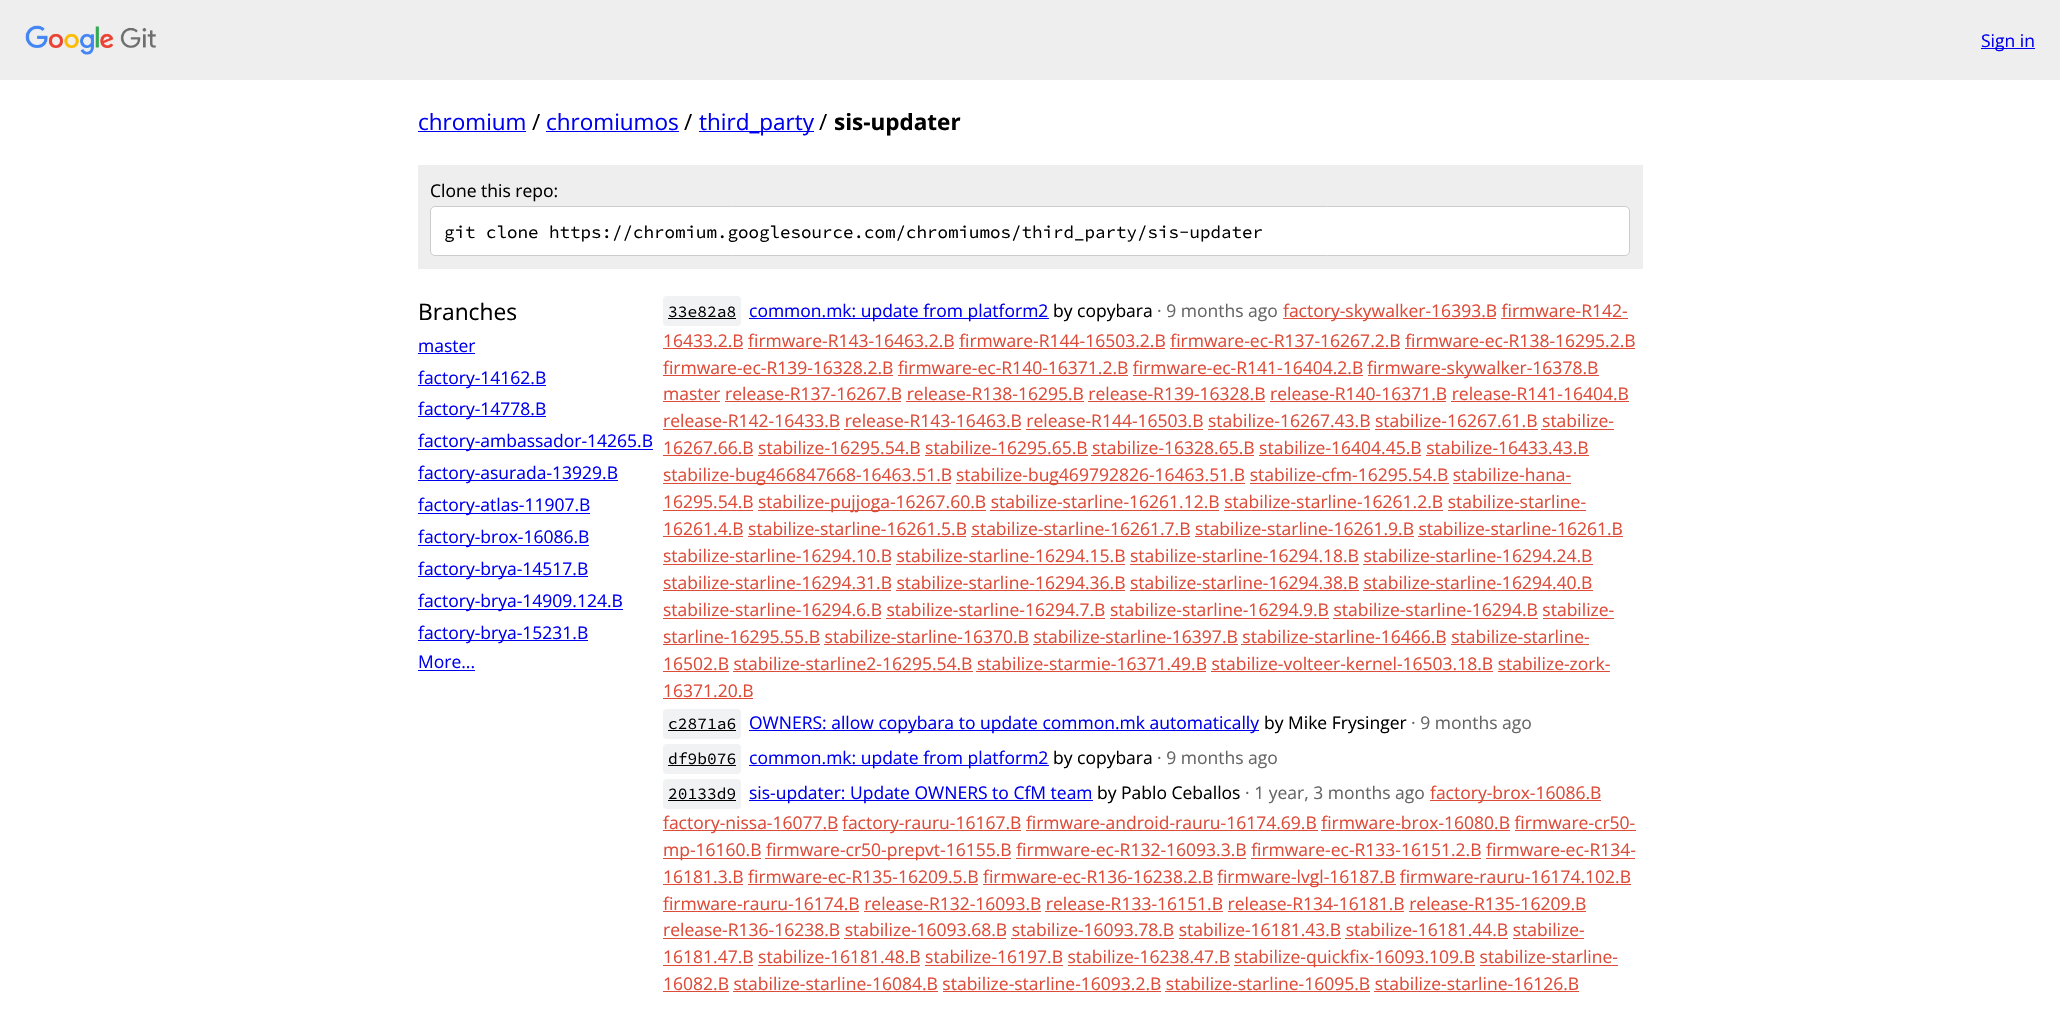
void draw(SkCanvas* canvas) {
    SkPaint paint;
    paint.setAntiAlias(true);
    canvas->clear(0xFFFFFFFF);
    paint.setColor(0xFFEEEEEE);
    canvas->drawRect(SkRect::MakeXYWH(0, 0, 2060, 80), paint);
    canvas->drawImageRect(SkImages::DeferredFromEncodedData(SkData::MakeFromFileName("img1.png")), SkRect::MakeXYWH(25, 25, 131, 30), SkSamplingOptions());
    paint.setColor(0xFF0000EE);
    canvas->drawRect(SkRect::MakeXYWH(1981, 48, 54, 1), paint);
    SkFont font1(fontMgr->matchFamilyStyle("Open Sans", SkFontStyle::Normal()), 17.5f);
    font1.setSubpixel(true);
    canvas->drawString("Sign in", 1981, 47, font1, paint);
    SkFont font2(fontMgr->matchFamilyStyle("Open Sans", SkFontStyle::Normal()), 22.5f);
    font2.setSubpixel(true);
    canvas->drawString("chromium", 418, 130, font2, paint);
    canvas->drawRect(SkRect::MakeXYWH(418, 131, 108, 1), paint);
    paint.setColor(0xFF000000);
    canvas->drawString("/", 532, 130, font2, paint);
    paint.setColor(0xFF0000EE);
    canvas->drawString("chromiumos", 546, 130, font2, paint);
    canvas->drawRect(SkRect::MakeXYWH(546, 131, 133, 1), paint);
    paint.setColor(0xFF000000);
    canvas->drawString("/", 684, 130, font2, paint);
    paint.setColor(0xFF0000EE);
    canvas->drawRect(SkRect::MakeXYWH(699, 131, 115, 1), paint);
    canvas->drawString("third_party", 699, 130, font2, paint);
    paint.setColor(0xFF000000);
    canvas->drawString("/", 819, 130, font2, paint);
    SkFont font3(fontMgr->matchFamilyStyle("Open Sans", SkFontStyle::Bold()), 22.5f);
    font3.setSubpixel(true);
    canvas->drawString("sis-updater", 834, 130, font3, paint);
    paint.setColor(0xFFEEEEEE);
    canvas->drawRect(SkRect::MakeXYWH(418, 165, 1225, 104), paint);
    paint.setColor(0xFF000000);
    canvas->drawString("Clone this repo:", 430, 197, font1, paint);
    paint.setColor(0xFFFFFFFF);
    canvas->drawRoundRect(SkRect::MakeXYWH(430.5f, 206.5f, 1199, 49), 4.5f, 4.5f, paint);
    paint.setStyle(SkPaint::kStroke_Style);
    paint.setStrokeWidth(1);
    paint.setColor(0xFFCCCCCC);
    canvas->drawRoundRect(SkRect::MakeXYWH(430.5f, 206.5f, 1199, 49), 4.5f, 4.5f, paint);
    SkFont font4(fontMgr->matchFamilyStyle("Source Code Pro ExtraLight", SkFontStyle(200, SkFontStyle::kNormal_Width, SkFontStyle::kUpright_Slant)), 17.5f);
    font4.setSubpixel(true);
    paint.setStyle(SkPaint::kFill_Style);
    paint.setColor(0xFF000000);
    canvas->drawString("git clone https://chromium.googlesource.com/chromiumos/third_party/sis-updater", 444, 238, font4, paint);
    SkFont font5(fontMgr->matchFamilyStyle("Open Sans", SkFontStyle::Normal()), 22.75f);
    font5.setSubpixel(true);
    canvas->drawString("Branches", 418, 320, font5, paint);
    paint.setColor(0xFF0000EE);
    canvas->drawString("master", 418, 352, font1, paint);
    canvas->drawRect(SkRect::MakeXYWH(418, 353, 57, 1), paint);
    canvas->drawRect(SkRect::MakeXYWH(418, 385, 128, 1), paint);
    canvas->drawString("factory-14162.B", 418, 384, font1, paint);
    canvas->drawRect(SkRect::MakeXYWH(418, 416, 128, 1), paint);
    canvas->drawString("factory-14778.B", 418, 415, font1, paint);
    canvas->drawRect(SkRect::MakeXYWH(418, 449, 235, 1), paint);
    canvas->drawString("factory-ambassador-14265.B", 418, 447, font1, paint);
    canvas->drawRect(SkRect::MakeXYWH(418, 480, 200, 1), paint);
    canvas->drawString("factory-asurada-13929.B", 418, 479, font1, paint);
    canvas->drawRect(SkRect::MakeXYWH(418, 513, 172, 1), paint);
    canvas->drawString("factory-atlas-11907.B", 418, 511, font1, paint);
    canvas->drawRect(SkRect::MakeXYWH(418, 545, 171, 1), paint);
    canvas->drawString("factory-brox-16086.B", 418, 543, font1, paint);
    canvas->drawRect(SkRect::MakeXYWH(418, 576, 170, 1), paint);
    canvas->drawString("factory-brya-14517.B", 418, 575, font1, paint);
    canvas->drawRect(SkRect::MakeXYWH(418, 609, 205, 1), paint);
    canvas->drawString("factory-brya-14909.124.B", 418, 607, font1, paint);
    canvas->drawRect(SkRect::MakeXYWH(418, 640, 170, 1), paint);
    canvas->drawString("factory-brya-15231.B", 418, 639, font1, paint);
    canvas->drawString("More...", 418, 668, font1, paint);
    canvas->drawRect(SkRect::MakeXYWH(418, 670, 57, 1), paint);
    paint.setColor(0xFFF1F2F3);
    canvas->drawRoundRect(SkRect::MakeXYWH(663, 296, 78, 30), 4, 4, paint);
    SkFont font6(fontMgr->matchFamilyStyle("Source Code Pro ExtraLight", SkFontStyle(200, SkFontStyle::kNormal_Width, SkFontStyle::kUpright_Slant)), 16.25f);
    font6.setSubpixel(true);
    paint.setColor(0xFF000000);
    canvas->drawString("33e82a8", 668, 317, font6, paint);
    canvas->drawRect(SkRect::MakeXYWH(668, 318, 68, 1), paint);
    paint.setColor(0xFF0000EE);
    canvas->drawRect(SkRect::MakeXYWH(749, 318, 300, 1), paint);
    canvas->drawString("common.mk: update from platform2", 749, 317, font1, paint);
    paint.setColor(0xFF000000);
    canvas->drawString("by copybara", 1053, 317, font1, paint);
    paint.setColor(0xFF666666);
    canvas->drawString("· 9 months ago", 1157, 317, font1, paint);
    paint.setColor(0xFFDD4B39);
    canvas->drawRect(SkRect::MakeXYWH(1283, 318, 213, 1), paint);
    canvas->drawString("factory-skywalker-16393.B firmware-R142-", 1283, 317, font1, paint);
    canvas->drawString("16433.2.B firmware-R143-16463.2.B firmware-R144-16503.2.B firmware-ec-R137-16267.2.B firmware-ec-R138-16295.2.B", 663, 347, font1, paint);
    canvas->drawRect(SkRect::MakeXYWH(1501, 318, 127, 1), paint);
    canvas->drawRect(SkRect::MakeXYWH(663, 348, 80, 1), paint);
    canvas->drawRect(SkRect::MakeXYWH(748, 348, 206, 1), paint);
    canvas->drawRect(SkRect::MakeXYWH(959, 348, 206, 1), paint);
    canvas->drawRect(SkRect::MakeXYWH(1170, 348, 230, 1), paint);
    canvas->drawRect(SkRect::MakeXYWH(1405, 348, 230, 1), paint);
    canvas->drawString("firmware-ec-R139-16328.2.B firmware-ec-R140-16371.2.B firmware-ec-R141-16404.2.B", 663, 374, font1, paint);
    canvas->drawRect(SkRect::MakeXYWH(663, 375, 230, 1), paint);
    canvas->drawRect(SkRect::MakeXYWH(1368, 375, 231, 1), paint);
    canvas->drawString("firmware-skywalker-16378.B", 1367, 374, font1, paint);
    canvas->drawRect(SkRect::MakeXYWH(898, 375, 230, 1), paint);
    canvas->drawRect(SkRect::MakeXYWH(1133, 375, 230, 1), paint);
    canvas->drawString("master release-R137-16267.B release-R138-16295.B release-R139-16328.B release-R140-16371.B release-R141-16404.B", 663, 400, font1, paint);
    canvas->drawRect(SkRect::MakeXYWH(663, 401, 57, 1), paint);
    canvas->drawRect(SkRect::MakeXYWH(725, 401, 176, 1), paint);
    canvas->drawRect(SkRect::MakeXYWH(906, 401, 178, 1), paint);
    canvas->drawRect(SkRect::MakeXYWH(1088, 401, 177, 1), paint);
    canvas->drawRect(SkRect::MakeXYWH(1270, 401, 176, 1), paint);
    canvas->drawRect(SkRect::MakeXYWH(1451, 401, 178, 1), paint);
    canvas->drawString("release-R142-16433.B release-R143-16463.B release-R144-16503.B stabilize-16267.43.B stabilize-16267.61.B stabilize-", 663, 427, font1, paint);
    canvas->drawRect(SkRect::MakeXYWH(663, 429, 177, 1), paint);
    canvas->drawRect(SkRect::MakeXYWH(844, 429, 177, 1), paint);
    canvas->drawRect(SkRect::MakeXYWH(1026, 429, 177, 1), paint);
    canvas->drawRect(SkRect::MakeXYWH(1208, 429, 162, 1), paint);
    canvas->drawRect(SkRect::MakeXYWH(1375, 429, 163, 1), paint);
    canvas->drawString("16267.66.B stabilize-16295.54.B stabilize-16295.65.B stabilize-16328.65.B stabilize-16404.45.B stabilize-16433.43.B", 663, 454, font1, paint);
    canvas->drawRect(SkRect::MakeXYWH(1541, 429, 73, 1), paint);
    canvas->drawRect(SkRect::MakeXYWH(663, 455, 90, 1), paint);
    canvas->drawRect(SkRect::MakeXYWH(758, 455, 162, 1), paint);
    canvas->drawRect(SkRect::MakeXYWH(925, 455, 163, 1), paint);
    canvas->drawRect(SkRect::MakeXYWH(1091, 455, 163, 1), paint);
    canvas->drawRect(SkRect::MakeXYWH(1259, 455, 162, 1), paint);
    canvas->drawRect(SkRect::MakeXYWH(1426, 455, 163, 1), paint);
    canvas->drawRect(SkRect::MakeXYWH(663, 483, 288, 1), paint);
    canvas->drawString("stabilize-bug466847668-16463.51.B", 663, 481, font1, paint);
    canvas->drawRect(SkRect::MakeXYWH(956, 483, 289, 1), paint);
    canvas->drawString("stabilize-bug469792826-16463.51.B stabilize-cfm-16295.54.B stabilize-hana-", 956, 481, font1, paint);
    canvas->drawRect(SkRect::MakeXYWH(1250, 483, 199, 1), paint);
    canvas->drawString("16295.54.B", 663, 508, font1, paint);
    canvas->drawRect(SkRect::MakeXYWH(1453, 483, 118, 1), paint);
    canvas->drawRect(SkRect::MakeXYWH(663, 510, 90, 1), paint);
    canvas->drawRect(SkRect::MakeXYWH(758, 510, 228, 1), paint);
    canvas->drawString("stabilize-pujjoga-16267.60.B stabilize-starline-16261.12.B stabilize-starline-16261.2.B stabilize-starline-", 758, 508, font1, paint);
    canvas->drawRect(SkRect::MakeXYWH(990, 510, 229, 1), paint);
    canvas->drawRect(SkRect::MakeXYWH(1224, 510, 219, 1), paint);
    canvas->drawString("16261.4.B stabilize-starline-16261.5.B stabilize-starline-16261.7.B stabilize-starline-16261.9.B stabilize-starline-16261.B", 663, 535, font1, paint);
    canvas->drawRect(SkRect::MakeXYWH(1448, 510, 138, 1), paint);
    canvas->drawRect(SkRect::MakeXYWH(663, 536, 80, 1), paint);
    canvas->drawRect(SkRect::MakeXYWH(748, 536, 218, 1), paint);
    canvas->drawRect(SkRect::MakeXYWH(971, 536, 219, 1), paint);
    canvas->drawRect(SkRect::MakeXYWH(1195, 536, 219, 1), paint);
    canvas->drawRect(SkRect::MakeXYWH(1418, 536, 205, 1), paint);
    canvas->drawString("stabilize-starline-16294.10.B stabilize-starline-16294.15.B stabilize-starline-16294.18.B stabilize-starline-16294.24.B", 663, 562, font1, paint);
    canvas->drawRect(SkRect::MakeXYWH(663, 564, 228, 1), paint);
    canvas->drawRect(SkRect::MakeXYWH(896, 564, 229, 1), paint);
    canvas->drawRect(SkRect::MakeXYWH(1130, 564, 229, 1), paint);
    canvas->drawRect(SkRect::MakeXYWH(1363, 564, 230, 1), paint);
    canvas->drawString("stabilize-starline-16294.31.B stabilize-starline-16294.36.B stabilize-starline-16294.38.B stabilize-starline-16294.40.B", 663, 589, font1, paint);
    canvas->drawRect(SkRect::MakeXYWH(663, 590, 228, 1), paint);
    canvas->drawRect(SkRect::MakeXYWH(896, 590, 229, 1), paint);
    canvas->drawRect(SkRect::MakeXYWH(1130, 590, 229, 1), paint);
    canvas->drawRect(SkRect::MakeXYWH(1363, 590, 230, 1), paint);
    canvas->drawString("stabilize-starline-16294.6.B stabilize-starline-16294.7.B stabilize-starline-16294.9.B stabilize-starline-16294.B stabilize-", 663, 616, font1, paint);
    canvas->drawRect(SkRect::MakeXYWH(663, 618, 218, 1), paint);
    canvas->drawRect(SkRect::MakeXYWH(886, 618, 219, 1), paint);
    canvas->drawRect(SkRect::MakeXYWH(1110, 618, 219, 1), paint);
    canvas->drawRect(SkRect::MakeXYWH(1333, 618, 205, 1), paint);
    canvas->drawString("starline-16295.55.B stabilize-starline-16370.B stabilize-starline-16397.B stabilize-starline-16466.B stabilize-starline-", 663, 643, font1, paint);
    canvas->drawRect(SkRect::MakeXYWH(1543, 618, 71, 1), paint);
    canvas->drawRect(SkRect::MakeXYWH(663, 644, 157, 1), paint);
    canvas->drawRect(SkRect::MakeXYWH(824, 644, 205, 1), paint);
    canvas->drawRect(SkRect::MakeXYWH(1033, 644, 205, 1), paint);
    canvas->drawRect(SkRect::MakeXYWH(1241, 644, 205, 1), paint);
    canvas->drawString("16502.B stabilize-starline2-16295.54.B stabilize-starmie-16371.49.B stabilize-volteer-kernel-16503.18.B stabilize-zork-", 663, 670, font1, paint);
    canvas->drawRect(SkRect::MakeXYWH(1451, 644, 138, 1), paint);
    canvas->drawRect(SkRect::MakeXYWH(663, 671, 66, 1), paint);
    canvas->drawRect(SkRect::MakeXYWH(733, 671, 240, 1), paint);
    canvas->drawRect(SkRect::MakeXYWH(976, 671, 230, 1), paint);
    canvas->drawRect(SkRect::MakeXYWH(1211, 671, 282, 1), paint);
    canvas->drawString("16371.20.B", 663, 697, font1, paint);
    canvas->drawRect(SkRect::MakeXYWH(1498, 671, 112, 1), paint);
    canvas->drawRect(SkRect::MakeXYWH(663, 698, 90, 1), paint);
    paint.setColor(0xFFF1F2F3);
    canvas->drawRoundRect(SkRect::MakeXYWH(663, 709, 78, 30), 4, 4, paint);
    paint.setColor(0xFF000000);
    canvas->drawString("c2871a6", 668, 729, font6, paint);
    canvas->drawRect(SkRect::MakeXYWH(668, 730, 68, 1), paint);
    paint.setColor(0xFF0000EE);
    canvas->drawRect(SkRect::MakeXYWH(749, 730, 510, 1), paint);
    canvas->drawString("OWNERS: allow copybara to update common.mk automatically", 749, 729, font1, paint);
    paint.setColor(0xFF000000);
    canvas->drawString("by Mike Frysinger", 1264, 729, font1, paint);
    paint.setColor(0xFF666666);
    canvas->drawString("· 9 months ago", 1411, 729, font1, paint);
    paint.setColor(0xFFF1F2F3);
    canvas->drawRoundRect(SkRect::MakeXYWH(663, 744, 78, 30), 4, 4, paint);
    paint.setColor(0xFF000000);
    canvas->drawString("df9b076", 668, 764, font6, paint);
    canvas->drawRect(SkRect::MakeXYWH(668, 765, 68, 1), paint);
    paint.setColor(0xFF0000EE);
    canvas->drawRect(SkRect::MakeXYWH(749, 765, 300, 1), paint);
    canvas->drawString("common.mk: update from platform2", 749, 764, font1, paint);
    paint.setColor(0xFF000000);
    canvas->drawString("by copybara", 1053, 764, font1, paint);
    paint.setColor(0xFF666666);
    canvas->drawString("· 9 months ago", 1157, 764, font1, paint);
    paint.setColor(0xFFF1F2F3);
    canvas->drawRoundRect(SkRect::MakeXYWH(663, 779, 78, 30), 4, 4, paint);
    paint.setColor(0xFF000000);
    canvas->drawString("20133d9", 668, 799, font6, paint);
    canvas->drawRect(SkRect::MakeXYWH(668, 800, 68, 1), paint);
    paint.setColor(0xFF0000EE);
    canvas->drawRect(SkRect::MakeXYWH(749, 800, 344, 1), paint);
    canvas->drawString("sis-updater: Update OWNERS to CfM team", 749, 799, font1, paint);
    paint.setColor(0xFF000000);
    canvas->drawString("by Pablo Ceballos", 1097, 799, font1, paint);
    paint.setColor(0xFF666666);
    canvas->drawString("· 1 year, 3 months ago", 1245, 799, font1, paint);
    paint.setColor(0xFFDD4B39);
    canvas->drawRect(SkRect::MakeXYWH(1430, 800, 171, 1), paint);
    canvas->drawString("factory-brox-16086.B", 1430, 799, font1, paint);
    canvas->drawRect(SkRect::MakeXYWH(663, 830, 175, 1), paint);
    canvas->drawString("factory-nissa-16077.B", 663, 829, font1, paint);
    canvas->drawRect(SkRect::MakeXYWH(843, 830, 178, 1), paint);
    canvas->drawString("factory-rauru-16167.B firmware-android-rauru-16174.69.B firmware-brox-16080.B firmware-cr50-", 842, 829, font1, paint);
    canvas->drawRect(SkRect::MakeXYWH(1026, 830, 292, 1), paint);
    canvas->drawRect(SkRect::MakeXYWH(1321, 830, 189, 1), paint);
    canvas->drawRect(SkRect::MakeXYWH(663, 858, 98, 1), paint);
    canvas->drawString("mp-16160.B", 663, 856, font1, paint);
    canvas->drawRect(SkRect::MakeXYWH(1515, 830, 121, 1), paint);
    canvas->drawRect(SkRect::MakeXYWH(765, 858, 246, 1), paint);
    canvas->drawString("firmware-cr50-prepvt-16155.B firmware-ec-R132-16093.3.B firmware-ec-R133-16151.2.B firmware-ec-R134-", 766, 856, font1, paint);
    canvas->drawRect(SkRect::MakeXYWH(1016, 858, 230, 1), paint);
    canvas->drawRect(SkRect::MakeXYWH(1251, 858, 230, 1), paint);
    canvas->drawString("16181.3.B firmware-ec-R135-16209.5.B firmware-ec-R136-16238.2.B", 663, 883, font1, paint);
    canvas->drawRect(SkRect::MakeXYWH(1486, 858, 149, 1), paint);
    canvas->drawRect(SkRect::MakeXYWH(663, 884, 80, 1), paint);
    canvas->drawRect(SkRect::MakeXYWH(1218, 884, 178, 1), paint);
    canvas->drawString("firmware-lvgl-16187.B firmware-rauru-16174.102.B", 1217, 883, font1, paint);
    canvas->drawRect(SkRect::MakeXYWH(748, 884, 230, 1), paint);
    canvas->drawRect(SkRect::MakeXYWH(983, 884, 230, 1), paint);
    canvas->drawRect(SkRect::MakeXYWH(1400, 884, 231, 1), paint);
    canvas->drawString("firmware-rauru-16174.B release-R132-16093.B release-R133-16151.B release-R134-16181.B release-R135-16209.B", 663, 910, font1, paint);
    canvas->drawRect(SkRect::MakeXYWH(663, 911, 196, 1), paint);
    canvas->drawRect(SkRect::MakeXYWH(864, 911, 177, 1), paint);
    canvas->drawRect(SkRect::MakeXYWH(1045, 911, 178, 1), paint);
    canvas->drawRect(SkRect::MakeXYWH(1228, 911, 176, 1), paint);
    canvas->drawRect(SkRect::MakeXYWH(1409, 911, 177, 1), paint);
    canvas->drawString("release-R136-16238.B stabilize-16093.68.B stabilize-16093.78.B stabilize-16181.43.B stabilize-16181.44.B stabilize-", 663, 936, font1, paint);
    canvas->drawRect(SkRect::MakeXYWH(663, 938, 177, 1), paint);
    canvas->drawRect(SkRect::MakeXYWH(844, 938, 162, 1), paint);
    canvas->drawRect(SkRect::MakeXYWH(1011, 938, 163, 1), paint);
    canvas->drawRect(SkRect::MakeXYWH(1179, 938, 162, 1), paint);
    canvas->drawRect(SkRect::MakeXYWH(1345, 938, 163, 1), paint);
    canvas->drawString("16181.47.B stabilize-16181.48.B stabilize-16197.B stabilize-16238.47.B", 663, 963, font1, paint);
    canvas->drawRect(SkRect::MakeXYWH(1513, 938, 71, 1), paint);
    canvas->drawRect(SkRect::MakeXYWH(663, 965, 90, 1), paint);
    canvas->drawRect(SkRect::MakeXYWH(1234, 965, 241, 1), paint);
    canvas->drawString("stabilize-quickfix-16093.109.B stabilize-starline-", 1234, 963, font1, paint);
    canvas->drawRect(SkRect::MakeXYWH(758, 965, 162, 1), paint);
    canvas->drawRect(SkRect::MakeXYWH(925, 965, 138, 1), paint);
    canvas->drawRect(SkRect::MakeXYWH(1068, 965, 162, 1), paint);
    canvas->drawString("16082.B stabilize-starline-16084.B stabilize-starline-16093.2.B stabilize-starline-16095.B stabilize-starline-16126.B", 663, 990, font1, paint);
    canvas->drawRect(SkRect::MakeXYWH(1480, 965, 138, 1), paint);
    canvas->drawRect(SkRect::MakeXYWH(663, 991, 66, 1), paint);
    canvas->drawRect(SkRect::MakeXYWH(733, 991, 205, 1), paint);
    canvas->drawRect(SkRect::MakeXYWH(943, 991, 218, 1), paint);
    canvas->drawRect(SkRect::MakeXYWH(1165, 991, 205, 1), paint);
    canvas->drawRect(SkRect::MakeXYWH(1374, 991, 205, 1), paint);
}
